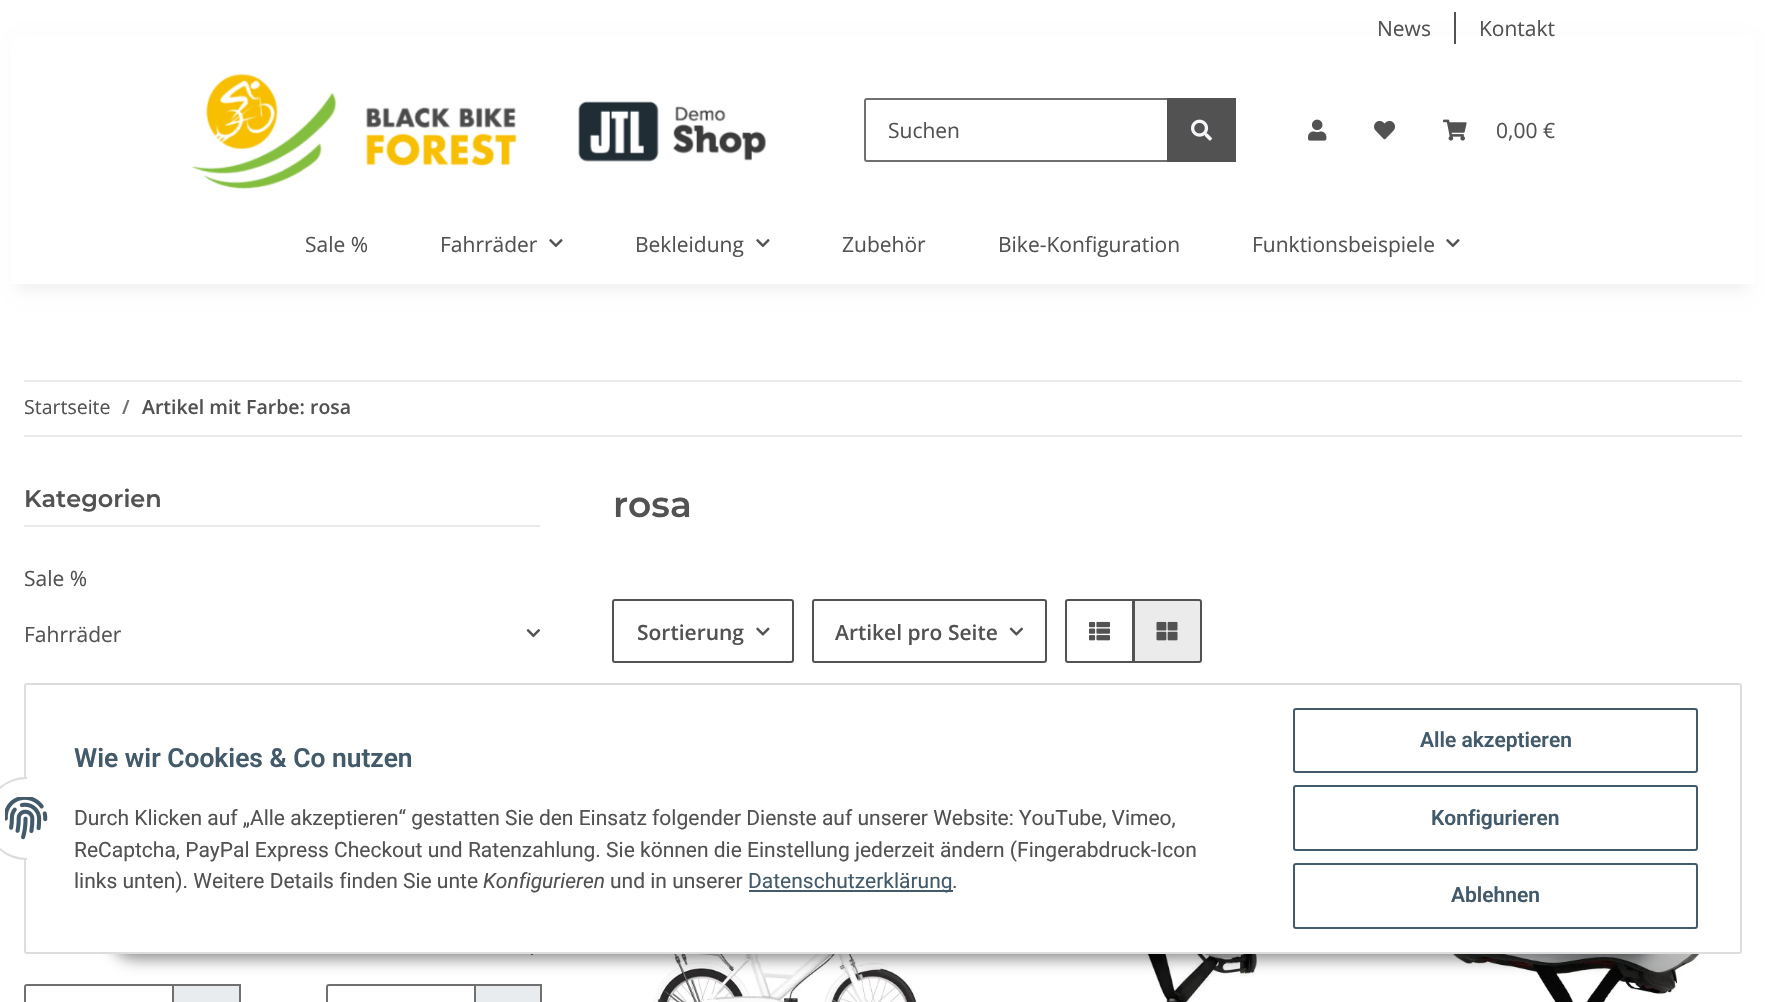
void draw(SkCanvas* canvas) {
    SkPaint paint;
    paint.setAntiAlias(true);
    canvas->clear(0xFFFFFFFF);
    paint.setColor(0x0F000000);
    paint.setMaskFilter(SkMaskFilter::MakeBlur(kNormal_SkBlurStyle, 7));
    canvas->drawRect(SkRect::MakeXYWH(18, 42, 1730, 248), paint);
    paint.setMaskFilter(nullptr);
    paint.setColor(0xFFFFFFFF);
    canvas->drawRect(SkRect::MakeXYWH(11, 35, 1744, 249), paint);
    SkFont font1(fontMgr->matchFamilyStyle("Open Sans", SkFontStyle::Normal()), 21);
    font1.setSubpixel(true);
    paint.setColor(0xFF525252);
    canvas->drawString("News", 1377, 36, font1, paint);
    canvas->drawRect(SkRect::MakeXYWH(1454, 12, 2, 32), paint);
    canvas->drawString("Kontakt", 1479, 36, font1, paint);
    canvas->drawImageRect(SkImages::DeferredFromEncodedData(SkData::MakeFromFileName("img1.png")), SkRect::MakeXYWH(191, 73, 575, 116), SkSamplingOptions());
    paint.setStyle(SkPaint::kStroke_Style);
    paint.setStrokeWidth(2);
    paint.setColor(0xFF707070);
    canvas->drawPath(SkPathBuilder().moveTo(867, 99).lineTo(1168, 99).lineTo(1168, 161).lineTo(867, 161).cubicTo(866, 161, 865, 160, 865, 159).lineTo(865, 101).cubicTo(865, 100, 866, 99, 867, 99).close().detach(), paint);
    paint.setStyle(SkPaint::kFill_Style);
    paint.setColor(0xFF525252);
    canvas->drawString("Suchen", 888, 138, font1, paint);
    canvas->drawRect(SkRect::MakeXYWH(1167, 98, 69, 64), paint);
    canvas->drawImageRect(SkImages::DeferredFromEncodedData(SkData::MakeFromFileName("img2.png")), SkRect::MakeXYWH(1191, 119, 21, 22), SkSamplingOptions());
    canvas->drawImageRect(SkImages::DeferredFromEncodedData(SkData::MakeFromFileName("img3.png")), SkRect::MakeXYWH(1308, 119, 19, 22), SkSamplingOptions());
    canvas->drawImageRect(SkImages::DeferredFromEncodedData(SkData::MakeFromFileName("img4.png")), SkRect::MakeXYWH(1374, 120, 21, 20), SkSamplingOptions());
    canvas->drawImageRect(SkImages::DeferredFromEncodedData(SkData::MakeFromFileName("img5.png")), SkRect::MakeXYWH(1443, 119, 24, 22), SkSamplingOptions());
    canvas->drawString("0,00 €", 1496, 138, font1, paint);
    canvas->drawString("Sale %", 305, 252, font1, paint);
    canvas->drawString("Fahrräder", 440, 252, font1, paint);
    canvas->drawImageRect(SkImages::DeferredFromEncodedData(SkData::MakeFromFileName("img6.png")), SkRect::MakeXYWH(549, 239, 14, 9), SkSamplingOptions());
    canvas->drawString("Bekleidung", 635, 252, font1, paint);
    canvas->drawImageRect(SkImages::DeferredFromEncodedData(SkData::MakeFromFileName("img6.png")), SkRect::MakeXYWH(756, 239, 14, 9), SkSamplingOptions());
    canvas->drawString("Zubehör", 842, 252, font1, paint);
    canvas->drawString("Bike-Konfiguration", 998, 252, font1, paint);
    canvas->drawString("Funktionsbeispiele", 1252, 252, font1, paint);
    canvas->drawImageRect(SkImages::DeferredFromEncodedData(SkData::MakeFromFileName("img6.png")), SkRect::MakeXYWH(1446, 239, 14, 9), SkSamplingOptions());
    paint.setColor(0xFFEBEBEB);
    canvas->drawRect(SkRect::MakeXYWH(24, 380, 1718, 2), paint);
    canvas->drawRect(SkRect::MakeXYWH(24, 435, 1718, 2), paint);
    SkFont font2(fontMgr->matchFamilyStyle("Open Sans", SkFontStyle::Normal()), 19.5f);
    font2.setSubpixel(true);
    paint.setColor(0xFF525252);
    canvas->drawString("Startseite", 24, 414, font2, paint);
    SkFont font3(fontMgr->matchFamilyStyle("Open Sans", SkFontStyle(600, SkFontStyle::kNormal_Width, SkFontStyle::kUpright_Slant)), 19.5f);
    font3.setSubpixel(true);
    paint.setColor(0xFF707070);
    canvas->drawString("/", 122, 414, font3, paint);
    paint.setColor(0xFF525252);
    canvas->drawString("Artikel mit Farbe: rosa", 142, 414, font3, paint);
    paint.setColor(0xFFEBEBEB);
    canvas->drawRect(SkRect::MakeXYWH(24, 525, 516, 2), paint);
    SkFont font4(fontMgr->matchFamilyStyle("Montserrat", SkFontStyle(600, SkFontStyle::kNormal_Width, SkFontStyle::kUpright_Slant)), 24);
    font4.setSubpixel(true);
    paint.setColor(0xFF525252);
    canvas->drawString("Kategorien", 24, 507, font4, paint);
    canvas->drawString("Sale %", 24, 586, font1, paint);
    canvas->drawString("Fahrräder", 24, 642, font1, paint);
    canvas->drawImageRect(SkImages::DeferredFromEncodedData(SkData::MakeFromFileName("img7.png")), SkRect::MakeXYWH(526, 629, 15, 9), SkSamplingOptions());
    canvas->drawImageRect(SkImages::DeferredFromEncodedData(SkData::MakeFromFileName("img8.png")), SkRect::MakeXYWH(530, 954, 4, 2), SkSamplingOptions());
    paint.setStyle(SkPaint::kStroke_Style);
    paint.setColor(0xFF707070);
    canvas->drawPath(SkPathBuilder().moveTo(27, 985).lineTo(173, 985).lineTo(173, 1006).lineTo(27, 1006).cubicTo(26, 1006, 25, 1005, 25, 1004).lineTo(25, 987).cubicTo(25, 986, 26, 985, 27, 985).close().detach(), paint);
    paint.setStyle(SkPaint::kFill_Style);
    paint.setColor(0xFFE9ECEF);
    canvas->drawRect(SkRect::MakeXYWH(174, 986, 65, 16), paint);
    paint.setColor(0xFF707070);
    canvas->drawRect(SkRect::MakeXYWH(174, 984, 66, 2), paint);
    canvas->drawRect(SkRect::MakeXYWH(239, 984, 2, 18), paint);
    paint.setStyle(SkPaint::kStroke_Style);
    canvas->drawPath(SkPathBuilder().moveTo(329, 985).lineTo(475, 985).lineTo(475, 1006).lineTo(329, 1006).cubicTo(328, 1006, 327, 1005, 327, 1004).lineTo(327, 987).cubicTo(327, 986, 328, 985, 329, 985).close().detach(), paint);
    paint.setStyle(SkPaint::kFill_Style);
    paint.setColor(0xFFE9ECEF);
    canvas->drawRect(SkRect::MakeXYWH(476, 986, 64, 16), paint);
    paint.setColor(0xFF707070);
    canvas->drawRect(SkRect::MakeXYWH(476, 984, 66, 2), paint);
    canvas->drawRect(SkRect::MakeXYWH(540, 984, 2, 18), paint);
    SkFont font5(fontMgr->matchFamilyStyle("Montserrat", SkFontStyle(600, SkFontStyle::kNormal_Width, SkFontStyle::kUpright_Slant)), 36);
    font5.setSubpixel(true);
    paint.setColor(0xFF525252);
    canvas->drawString("rosa", 613, 517, font5, paint);
    paint.setStyle(SkPaint::kStroke_Style);
    canvas->drawRoundRect(SkRect::MakeXYWH(613, 600, 180, 62), 2, 2, paint);
    SkFont font6(fontMgr->matchFamilyStyle("Open Sans", SkFontStyle(600, SkFontStyle::kNormal_Width, SkFontStyle::kUpright_Slant)), 21);
    font6.setSubpixel(true);
    paint.setStyle(SkPaint::kFill_Style);
    canvas->drawString("Sortierung", 637, 640, font6, paint);
    canvas->drawImageRect(SkImages::DeferredFromEncodedData(SkData::MakeFromFileName("img9.png")), SkRect::MakeXYWH(756, 627, 14, 9), SkSamplingOptions());
    paint.setStyle(SkPaint::kStroke_Style);
    canvas->drawRoundRect(SkRect::MakeXYWH(813, 600, 233, 62), 2, 2, paint);
    paint.setStyle(SkPaint::kFill_Style);
    canvas->drawString("Artikel pro Seite", 835, 640, font6, paint);
    canvas->drawImageRect(SkImages::DeferredFromEncodedData(SkData::MakeFromFileName("img10.png")), SkRect::MakeXYWH(1009, 627, 14, 9), SkSamplingOptions());
    paint.setStyle(SkPaint::kStroke_Style);
    canvas->drawPath(SkPathBuilder().moveTo(1068, 600).lineTo(1133, 600).lineTo(1133, 662).lineTo(1068, 662).cubicTo(1067, 662, 1066, 661, 1066, 660).lineTo(1066, 602).cubicTo(1066, 601, 1067, 600, 1068, 600).close().detach(), paint);
    canvas->drawImageRect(SkImages::DeferredFromEncodedData(SkData::MakeFromFileName("img11.png")), SkRect::MakeXYWH(1089, 621, 21, 20), SkSamplingOptions());
    paint.setStyle(SkPaint::kFill_Style);
    paint.setColor(0xFFEBEBEB);
    canvas->drawPath(SkPathBuilder().moveTo(1134, 600).lineTo(1199, 600).cubicTo(1200, 600, 1201, 601, 1201, 602).lineTo(1201, 660).cubicTo(1201, 661, 1200, 662, 1199, 662).lineTo(1134, 662).close().detach(), paint);
    paint.setStyle(SkPaint::kStroke_Style);
    paint.setColor(0xFF525252);
    canvas->drawPath(SkPathBuilder().moveTo(1134, 600).lineTo(1199, 600).cubicTo(1200, 600, 1201, 601, 1201, 602).lineTo(1201, 660).cubicTo(1201, 661, 1200, 662, 1199, 662).lineTo(1134, 662).close().detach(), paint);
    canvas->drawImageRect(SkImages::DeferredFromEncodedData(SkData::MakeFromFileName("img12.png")), SkRect::MakeXYWH(1156, 621, 22, 20), SkSamplingOptions());
    canvas->drawImageRect(SkImages::DeferredFromEncodedData(SkData::MakeFromFileName("img13.png")), SkRect::MakeXYWH(653, 954, 264, 48), SkSamplingOptions());
    canvas->drawImageRect(SkImages::DeferredFromEncodedData(SkData::MakeFromFileName("img14.png")), SkRect::MakeXYWH(1077, 954, 201, 48), SkSamplingOptions());
    canvas->drawImageRect(SkImages::DeferredFromEncodedData(SkData::MakeFromFileName("img15.png")), SkRect::MakeXYWH(1451, 954, 256, 48), SkSamplingOptions());
    paint.setStyle(SkPaint::kFill_Style);
    paint.setColor(0x73000000);
    paint.setMaskFilter(SkMaskFilter::MakeBlur(kNormal_SkBlurStyle, 7.5f));
    canvas->drawRoundRect(SkRect::MakeXYWH(111, 911, 1544, 48), 24, 24, paint);
    paint.setMaskFilter(nullptr);
    paint.setColor(0xFFFFFFFF);
    canvas->drawRoundRect(SkRect::MakeXYWH(25, 684, 1716, 269), 2, 2, paint);
    paint.setStyle(SkPaint::kStroke_Style);
    paint.setColor(0xFFDDDDDD);
    canvas->drawRoundRect(SkRect::MakeXYWH(25, 684, 1716, 269), 2, 2, paint);
    paint.setStyle(SkPaint::kFill_Style);
    paint.setColor(0xFFFFFFFF);
    canvas->drawCircle(26.5f, 818.5f, 40.5f, paint);
    paint.setStyle(SkPaint::kStroke_Style);
    paint.setColor(0xFFDDDDDD);
    canvas->drawCircle(26.5f, 818.5f, 40.5f, paint);
    paint.setStyle(SkPaint::kFill_Style);
    paint.setColor(0xFFFFFFFF);
    canvas->drawRect(SkRect::MakeXYWH(27, 777, 41, 83), paint);
    canvas->drawImageRect(SkImages::DeferredFromEncodedData(SkData::MakeFromFileName("img16.png")), SkRect::MakeXYWH(5, 797, 43, 43), SkSamplingOptions());
    SkFont font7(fontMgr->matchFamilyStyle("Roboto", SkFontStyle(600, SkFontStyle::kNormal_Width, SkFontStyle::kUpright_Slant)), 26.4f);
    font7.setSubpixel(true);
    paint.setColor(0xFF435A6B);
    canvas->drawString("Wie wir Cookies & Co nutzen", 74, 767, font7, paint);
    SkFont font8(fontMgr->matchFamilyStyle("Roboto", SkFontStyle::Normal()), 21);
    font8.setSubpixel(true);
    paint.setColor(0xFF525252);
    canvas->drawString("Durch Klicken auf „Alle akzeptieren“ gestatten Sie den Einsatz folgender Dienste auf unserer Website: YouTube, Vimeo,", 74, 825, font8, paint);
    canvas->drawString("ReCaptcha, PayPal Express Checkout und Ratenzahlung. Sie können die Einstellung jederzeit ändern (Fingerabdruck-Icon", 74, 857, font8, paint);
    canvas->drawString("links unten). Weitere Details finden Sie unte", 74, 888, font8, paint);
    SkFont font9(fontMgr->matchFamilyStyle("Roboto", SkFontStyle::Italic()), 21);
    font9.setSubpixel(true);
    canvas->drawString("Konfigurieren", 483, 888, font9, paint);
    canvas->drawString("und in unserer", 610, 888, font8, paint);
    paint.setColor(0xFF435A6B);
    canvas->drawRect(SkRect::MakeXYWH(749, 890, 204, 2), paint);
    canvas->drawString("Datenschutzerklärung", 748, 888, font8, paint);
    paint.setColor(0xFF525252);
    canvas->drawString(".", 952, 888, font8, paint);
    paint.setStyle(SkPaint::kStroke_Style);
    paint.setColor(0xFF435A6B);
    canvas->drawRoundRect(SkRect::MakeXYWH(1294, 709, 403, 63), 2, 2, paint);
    SkFont font10(fontMgr->matchFamilyStyle("Roboto", SkFontStyle(600, SkFontStyle::kNormal_Width, SkFontStyle::kUpright_Slant)), 21);
    font10.setSubpixel(true);
    paint.setStyle(SkPaint::kFill_Style);
    canvas->drawString("Alle akzeptieren", 1420, 747, font10, paint);
    paint.setStyle(SkPaint::kStroke_Style);
    canvas->drawRoundRect(SkRect::MakeXYWH(1294, 786, 403, 64), 2, 2, paint);
    paint.setStyle(SkPaint::kFill_Style);
    canvas->drawString("Konfigurieren", 1431, 825, font10, paint);
    paint.setStyle(SkPaint::kStroke_Style);
    canvas->drawRoundRect(SkRect::MakeXYWH(1294, 864, 403, 64), 2, 2, paint);
    paint.setStyle(SkPaint::kFill_Style);
    canvas->drawString("Ablehnen", 1451, 902, font10, paint);
}
